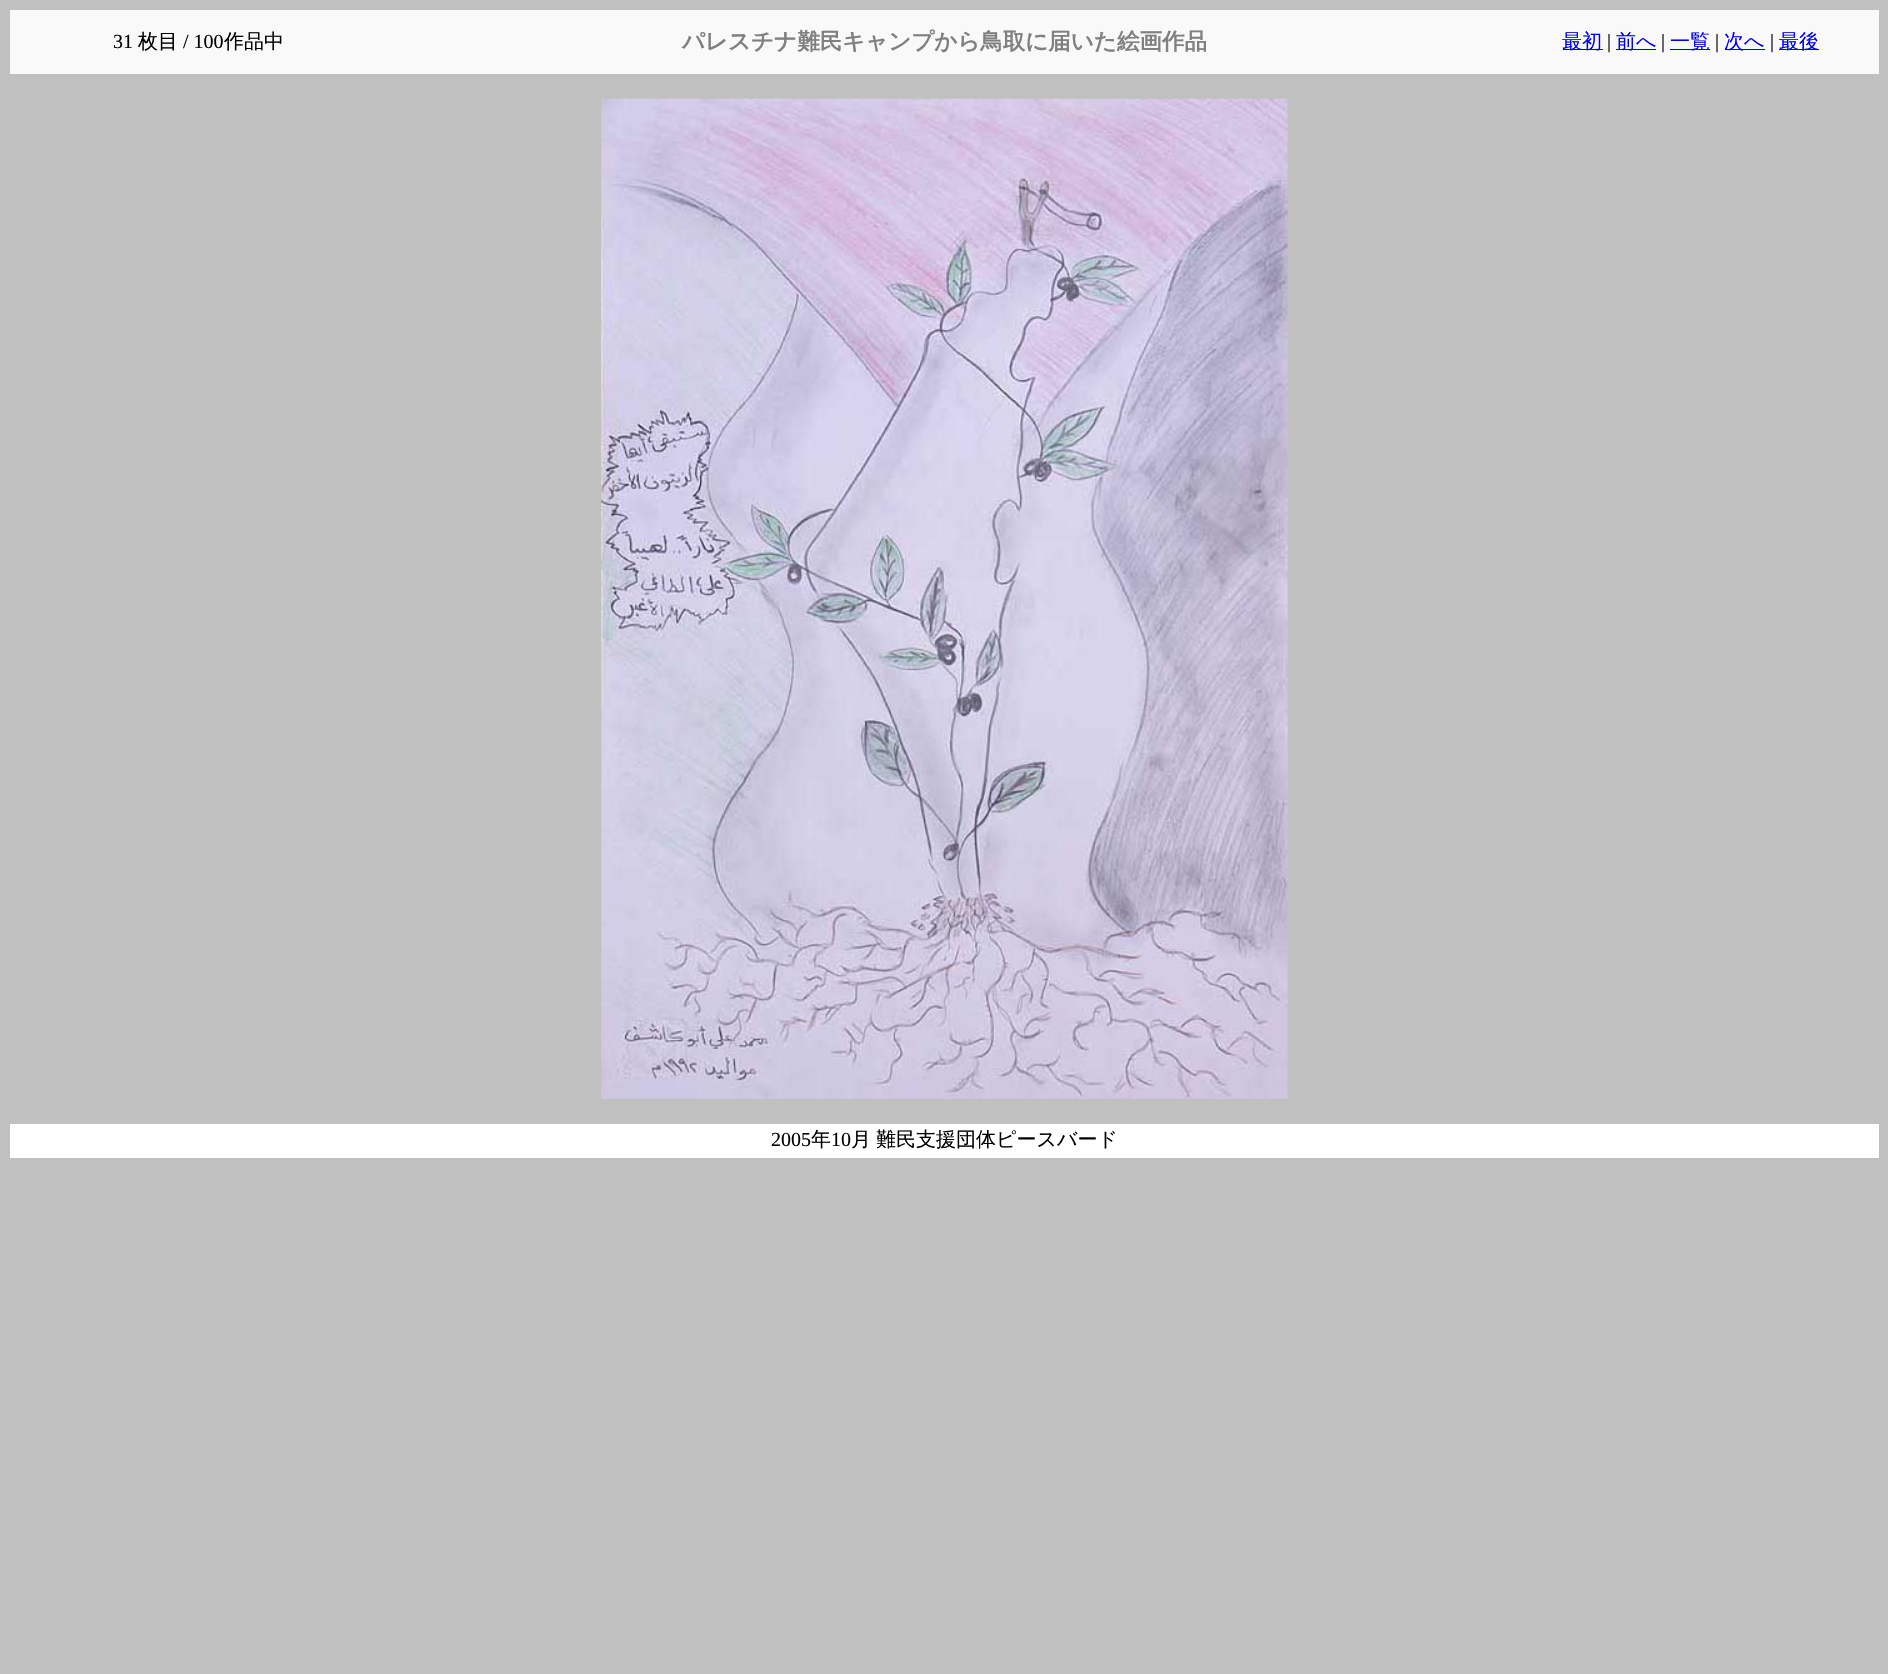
void draw(SkCanvas* canvas) {
    SkPaint paint;
    paint.setAntiAlias(true);
    auto spacedText = [&](const char* s, float x, float y, const SkFont& font, const SkPaint& ink, float letter, float word) {
        std::vector<SkGlyphID> glyphs(font.countText(s, strlen(s), SkTextEncoding::kUTF8));
        std::vector<float> xs(glyphs.size());
        font.textToGlyphs(s, strlen(s), SkTextEncoding::kUTF8, glyphs);
        font.getXPos(glyphs, xs, x);
        float extra = 0;
        for (size_t i = 0; i < glyphs.size(); i++) {
            xs[i] += extra;
            extra += letter + word * (glyphs[i] == font.unicharToGlyph(' '));
        }
        canvas->drawTextBlob(SkTextBlob::MakeFromPosHGlyphs(glyphs, xs, y, font), 0, 0, ink);
    };
    canvas->clear(0xFFC0C0C0);
    paint.setColor(0xFFF9F9F9);
    canvas->drawRect(SkRect::MakeXYWH(10, 10, 1869, 64), paint);
    SkFont font1(fontMgr->matchFamilyStyle("Liberation Serif", SkFontStyle::Normal()), 20);
    font1.setSubpixel(true);
    paint.setColor(0xFF000000);
    canvas->drawString("31", 113, 48, font1, paint);
    SkFont font2(fontMgr->matchFamilyStyle("WenQuanYi Zen Hei", SkFontStyle(500, SkFontStyle::kNormal_Width, SkFontStyle::kUpright_Slant)), 20);
    font2.setSubpixel(true);
    canvas->drawString("枚目", 138, 48, font2, paint);
    canvas->drawString("/ 100", 183, 48, font1, paint);
    canvas->drawString("作品中", 224, 48, font2, paint);
    SkFont font3(fontMgr->matchFamilyStyle("WenQuanYi Zen Hei", SkFontStyle::Bold()), 22.5f);
    font3.setSubpixel(true);
    paint.setColor(0xFF808080);
    canvas->drawString("パレスチナ難民キャンプから鳥取に届いた絵画作品", 682, 49, font3, paint);
    paint.setColor(0xFF0000EE);
    canvas->drawRect(SkRect::MakeXYWH(1563, 49, 40, 1), paint);
    canvas->drawString("最初", 1562, 48, font2, paint);
    paint.setColor(0xFF000000);
    canvas->drawString("|", 1607, 48, font1, paint);
    paint.setColor(0xFF0000EE);
    canvas->drawRect(SkRect::MakeXYWH(1616, 49, 40, 1), paint);
    canvas->drawString("前へ", 1616, 48, font2, paint);
    paint.setColor(0xFF000000);
    canvas->drawString("|", 1661, 48, font1, paint);
    paint.setColor(0xFF0000EE);
    canvas->drawRect(SkRect::MakeXYWH(1670, 49, 40, 1), paint);
    canvas->drawString("一覧", 1670, 48, font2, paint);
    paint.setColor(0xFF000000);
    canvas->drawString("|", 1715, 48, font1, paint);
    paint.setColor(0xFF0000EE);
    canvas->drawRect(SkRect::MakeXYWH(1725, 49, 40, 1), paint);
    canvas->drawString("次へ", 1724, 48, font2, paint);
    paint.setColor(0xFF000000);
    canvas->drawString("|", 1770, 48, font1, paint);
    paint.setColor(0xFF0000EE);
    canvas->drawRect(SkRect::MakeXYWH(1779, 49, 40, 1), paint);
    canvas->drawString("最後", 1779, 48, font2, paint);
    canvas->drawImageRect(SkImages::DeferredFromEncodedData(SkData::MakeFromFileName("img1.png")), SkRect::MakeXYWH(601, 98, 687, 1001), SkSamplingOptions());
    paint.setColor(0xFFFFFFFF);
    canvas->drawRect(SkRect::MakeXYWH(10, 1124, 1869, 34), paint);
    paint.setColor(0xFF000000);
    canvas->drawString("2005", 771, 1146, font1, paint);
    canvas->drawString("年", 811, 1146, font2, paint);
    canvas->drawString("10", 831, 1146, font1, paint);
    spacedText("月 難民支援団体ピースバード", 851, 1146, font2, paint, 0, -1);
}
